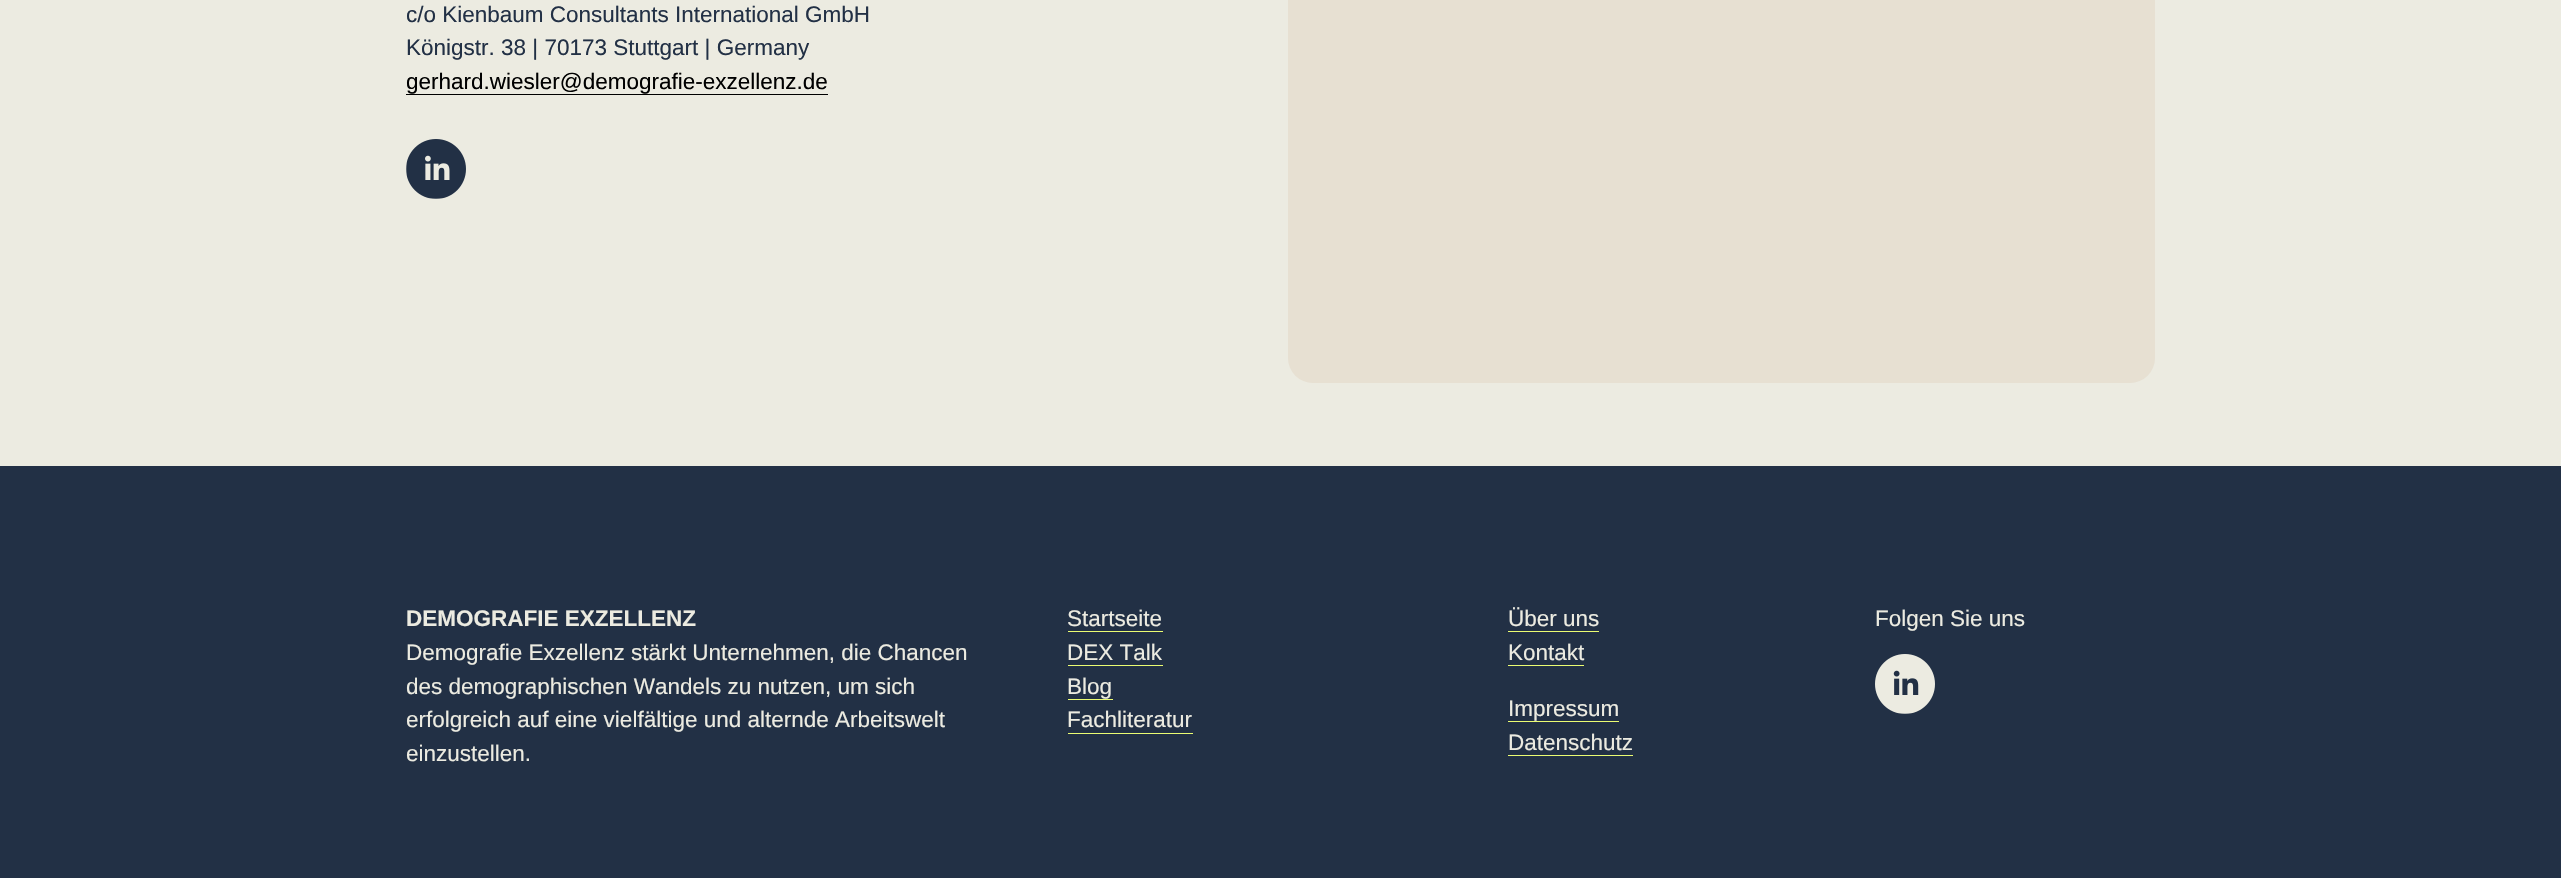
void draw(SkCanvas* canvas) {
    SkPaint paint;
    paint.setAntiAlias(true);
    canvas->clear(0xFFECEBE1);
    SkFont font1(fontMgr->matchFamilyStyle("Liberation Sans", SkFontStyle::Normal()), 22.5f);
    font1.setSubpixel(true);
    paint.setColor(0xFF223045);
    canvas->drawString("c/o Kienbaum Consultants International GmbH", 406, 22, font1, paint);
    canvas->drawString("Königstr. 38 | 70173 Stuttgart | Germany", 406, 55, font1, paint);
    paint.setColor(0xFF000000);
    canvas->drawString("gerhard.wiesler@demografie-exzellenz.de", 406, 89, font1, paint);
    canvas->drawRect(SkRect::MakeXYWH(406, 94, 422, 1), paint);
    paint.setColor(0xFFE7E0D2);
    canvas->drawRoundRect(SkRect::MakeXYWH(1288, -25, 867, 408), 25, 25, paint);
    canvas->drawImageRect(SkImages::DeferredFromEncodedData(SkData::MakeFromFileName("img1.png")), SkRect::MakeXYWH(406, 139, 60, 60), SkSamplingOptions());
    paint.setColor(0xFF223045);
    canvas->drawRect(SkRect::MakeXYWH(0, 466, 2561, 412), paint);
    SkFont font2(fontMgr->matchFamilyStyle("Liberation Sans", SkFontStyle::Bold()), 22.5f);
    font2.setSubpixel(true);
    paint.setColor(0xFFECEBE1);
    canvas->drawString("DEMOGRAFIE EXZELLENZ", 406, 626, font2, paint);
    canvas->drawString("Demografie Exzellenz stärkt Unternehmen, die Chancen", 406, 660, font1, paint);
    canvas->drawString("des demographischen Wandels zu nutzen, um sich", 406, 694, font1, paint);
    canvas->drawString("erfolgreich auf eine vielfältige und alternde Arbeitswelt", 406, 727, font1, paint);
    canvas->drawString("einzustellen.", 406, 761, font1, paint);
    canvas->drawString("Startseite", 1067, 626, font1, paint);
    paint.setColor(0xFFEBFC72);
    canvas->drawRect(SkRect::MakeXYWH(1068, 631, 95, 1), paint);
    paint.setColor(0xFFECEBE1);
    canvas->drawString("DEX Talk", 1067, 660, font1, paint);
    paint.setColor(0xFFEBFC72);
    canvas->drawRect(SkRect::MakeXYWH(1068, 665, 95, 1), paint);
    paint.setColor(0xFFECEBE1);
    canvas->drawString("Blog", 1067, 694, font1, paint);
    paint.setColor(0xFFEBFC72);
    canvas->drawRect(SkRect::MakeXYWH(1068, 699, 45, 1), paint);
    paint.setColor(0xFFECEBE1);
    canvas->drawString("Fachliteratur", 1067, 727, font1, paint);
    paint.setColor(0xFFEBFC72);
    canvas->drawRect(SkRect::MakeXYWH(1068, 733, 125, 1), paint);
    paint.setColor(0xFFECEBE1);
    canvas->drawString("Über uns", 1508, 626, font1, paint);
    paint.setColor(0xFFEBFC72);
    canvas->drawRect(SkRect::MakeXYWH(1508, 631, 91, 1), paint);
    paint.setColor(0xFFECEBE1);
    canvas->drawString("Kontakt", 1508, 660, font1, paint);
    paint.setColor(0xFFEBFC72);
    canvas->drawRect(SkRect::MakeXYWH(1508, 665, 76, 1), paint);
    paint.setColor(0xFFECEBE1);
    canvas->drawString("Impressum", 1508, 716, font1, paint);
    paint.setColor(0xFFEBFC72);
    canvas->drawRect(SkRect::MakeXYWH(1508, 721, 111, 1), paint);
    paint.setColor(0xFFECEBE1);
    canvas->drawString("Datenschutz", 1508, 750, font1, paint);
    paint.setColor(0xFFEBFC72);
    canvas->drawRect(SkRect::MakeXYWH(1508, 755, 125, 1), paint);
    paint.setColor(0xFFECEBE1);
    canvas->drawString("Folgen Sie uns", 1875, 626, font1, paint);
    canvas->drawImageRect(SkImages::DeferredFromEncodedData(SkData::MakeFromFileName("img2.png")), SkRect::MakeXYWH(1875, 654, 60, 60), SkSamplingOptions());
}
